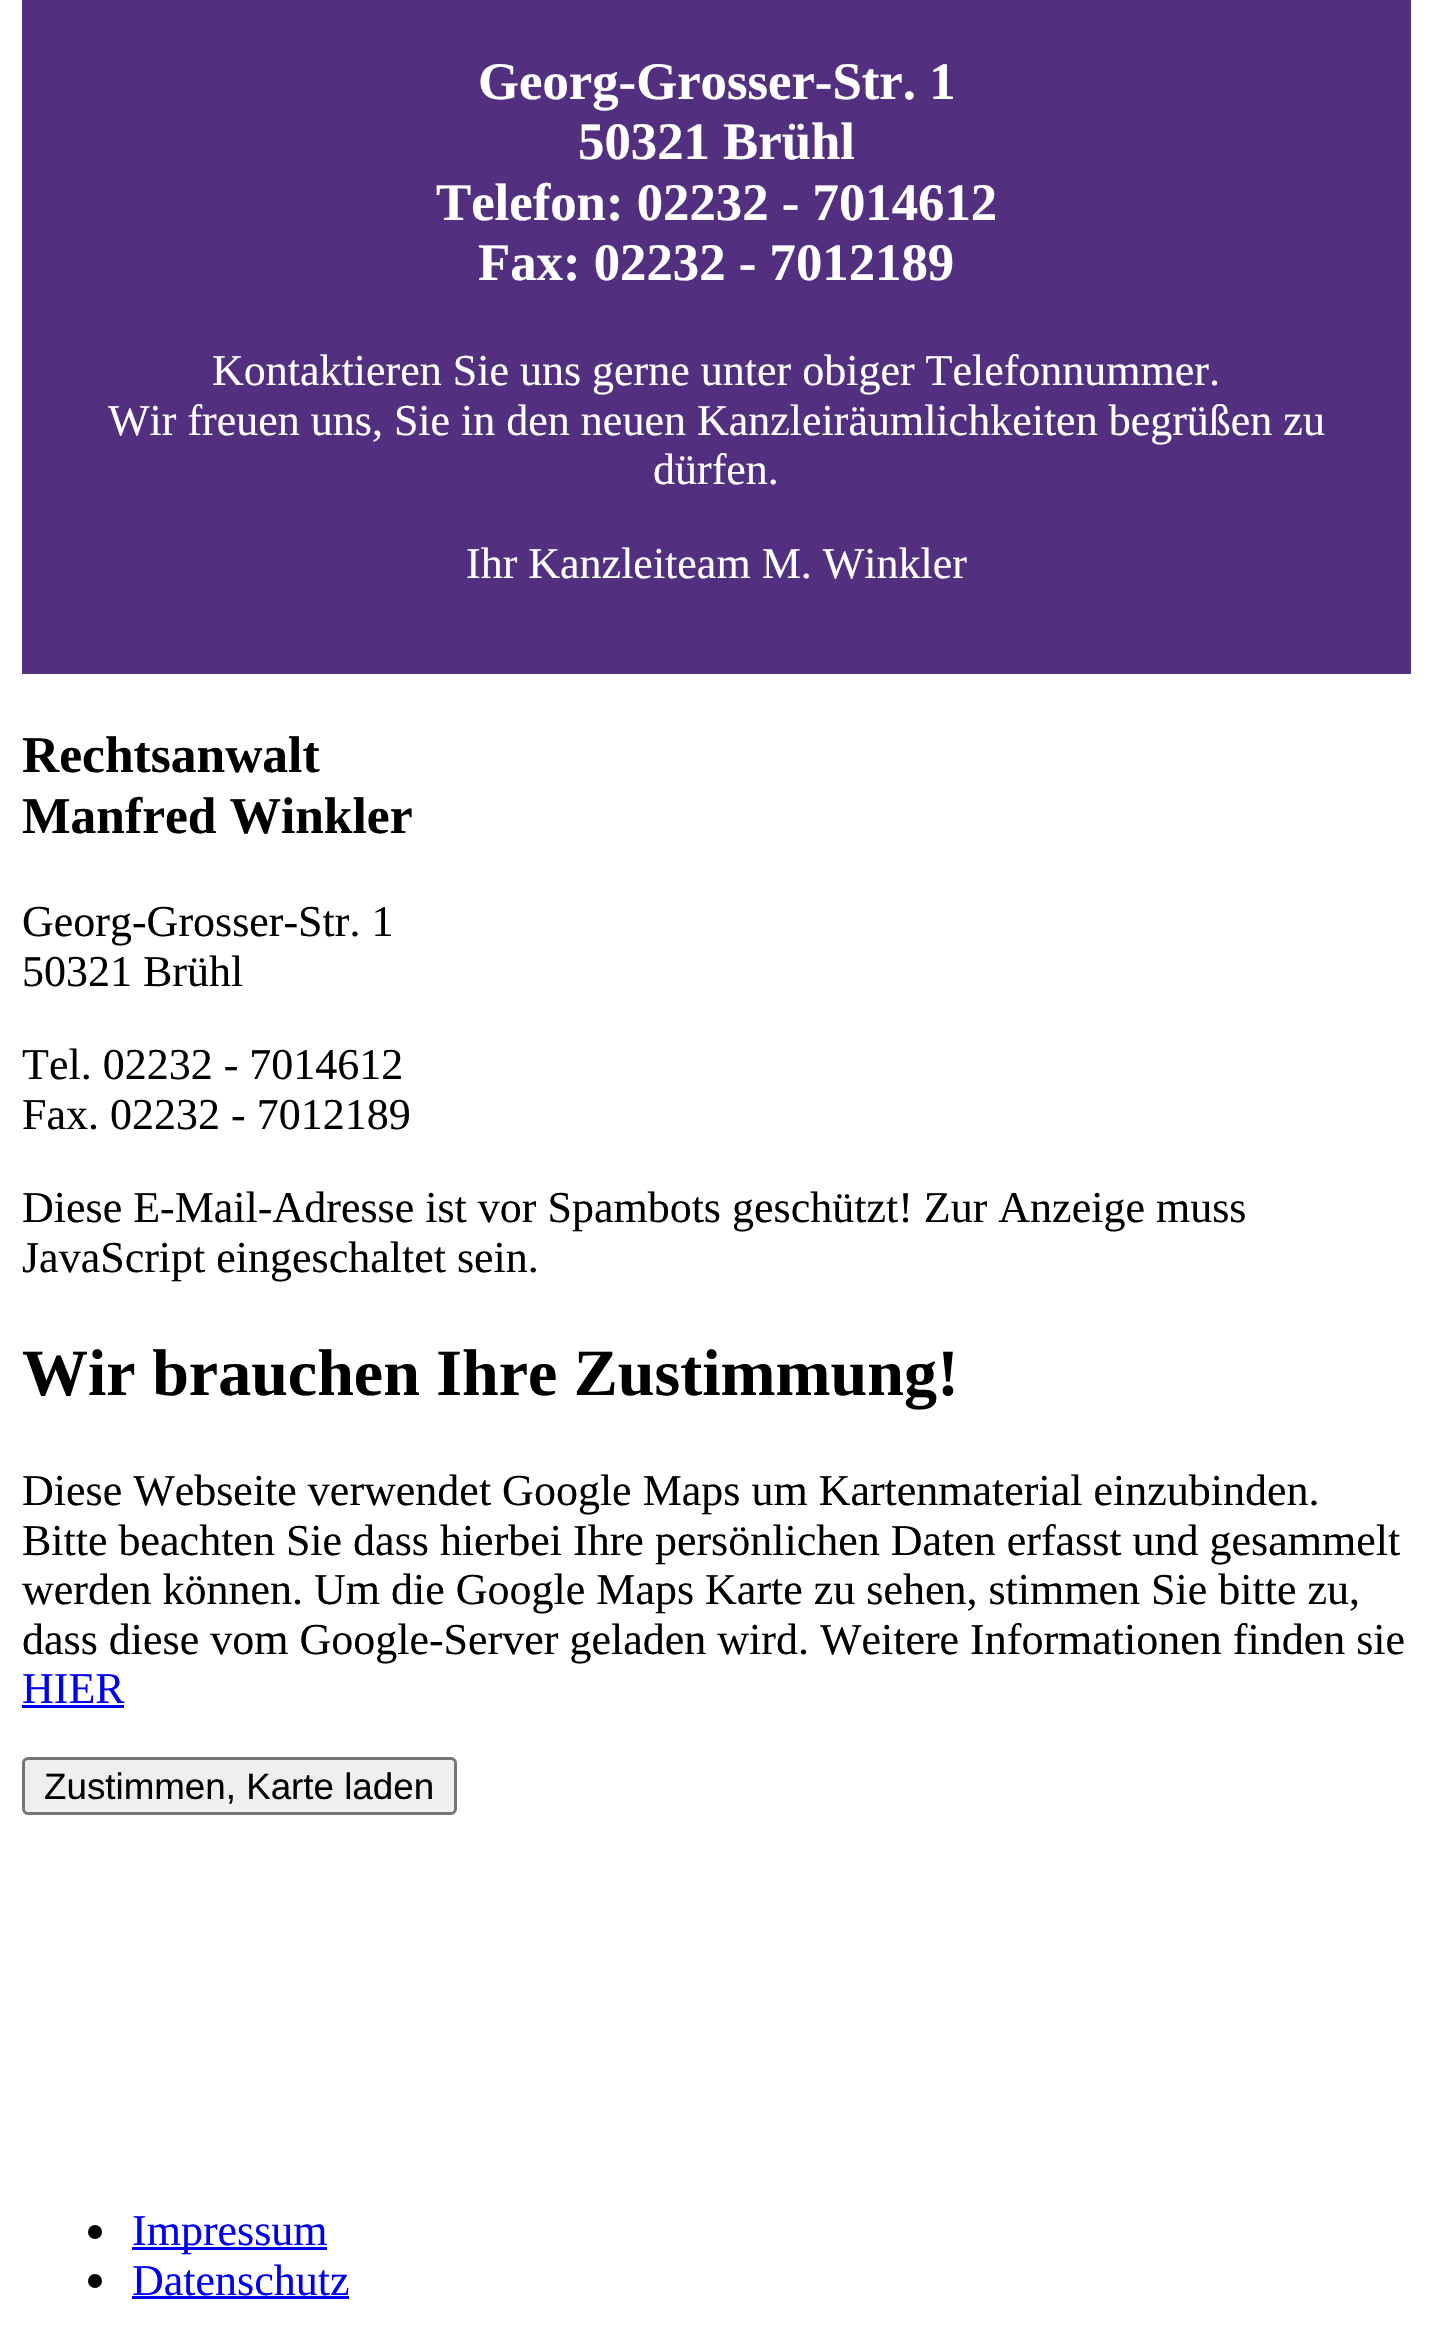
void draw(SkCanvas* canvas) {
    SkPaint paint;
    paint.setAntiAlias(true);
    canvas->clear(0xFFFFFFFF);
    paint.setColor(0xFF52307F);
    canvas->drawRect(SkRect::MakeXYWH(22, 0, 1389, 674), paint);
    SkFont font1(fontMgr->matchFamilyStyle("Liberation Serif", SkFontStyle::Bold()), 52.75f);
    font1.setSubpixel(true);
    paint.setColor(0xFFFFFFFF);
    canvas->drawString("Georg-Grosser-Str. 1", 478, 99, font1, paint);
    canvas->drawString("50321 Brühl", 578, 159, font1, paint);
    canvas->drawString("Telefon: 02232 - 7014612", 436, 220, font1, paint);
    canvas->drawString("Fax: 02232 - 7012189", 478, 280, font1, paint);
    SkFont font2(fontMgr->matchFamilyStyle("Liberation Serif", SkFontStyle::Normal()), 44);
    font2.setSubpixel(true);
    canvas->drawString("Kontaktieren Sie uns gerne unter obiger Telefonnummer.", 212, 385, font2, paint);
    canvas->drawString("Wir freuen uns, Sie in den neuen Kanzleiräumlichkeiten begrüßen zu", 108, 435, font2, paint);
    canvas->drawString("dürfen.", 653, 484, font2, paint);
    canvas->drawString("Ihr Kanzleiteam M. Winkler", 466, 578, font2, paint);
    SkFont font3(fontMgr->matchFamilyStyle("Liberation Serif", SkFontStyle::Bold()), 51.5f);
    font3.setSubpixel(true);
    paint.setColor(0xFF000000);
    canvas->drawString("Rechtsanwalt", 22, 772, font3, paint);
    canvas->drawString("Manfred Winkler", 22, 833, font3, paint);
    canvas->drawString("Georg-Grosser-Str. 1", 22, 936, font2, paint);
    canvas->drawString("50321 Brühl", 22, 986, font2, paint);
    canvas->drawString("Tel. 02232 - 7014612", 22, 1079, font2, paint);
    canvas->drawString("Fax. 02232 - 7012189", 22, 1129, font2, paint);
    canvas->drawString("Diese E-Mail-Adresse ist vor Spambots geschützt! Zur Anzeige muss", 22, 1222, font2, paint);
    canvas->drawString("JavaScript eingeschaltet sein.", 22, 1272, font2, paint);
    SkFont font4(fontMgr->matchFamilyStyle("Liberation Serif", SkFontStyle::Bold()), 66);
    font4.setSubpixel(true);
    canvas->drawString("Wir brauchen Ihre Zustimmung!", 22, 1395, font4, paint);
    canvas->drawString("Diese Webseite verwendet Google Maps um Kartenmaterial einzubinden.", 22, 1505, font2, paint);
    canvas->drawString("Bitte beachten Sie dass hierbei Ihre persönlichen Daten erfasst und gesammelt", 22, 1555, font2, paint);
    canvas->drawString("werden können. Um die Google Maps Karte zu sehen, stimmen Sie bitte zu,", 22, 1604, font2, paint);
    canvas->drawString("dass diese vom Google-Server geladen wird. Weitere Informationen finden sie", 22, 1654, font2, paint);
    paint.setColor(0xFF0000EE);
    canvas->drawString("HIER", 22, 1703, font2, paint);
    canvas->drawRect(SkRect::MakeXYWH(22, 1705, 102, 3), paint);
    paint.setColor(0xFFEFEFEF);
    canvas->drawRoundRect(SkRect::MakeXYWH(23.5f, 1758.5f, 432, 55), 4.5f, 4.5f, paint);
    paint.setStyle(SkPaint::kStroke_Style);
    paint.setStrokeWidth(3);
    paint.setColor(0xFF767676);
    canvas->drawRoundRect(SkRect::MakeXYWH(23.5f, 1758.5f, 432, 55), 4.5f, 4.5f, paint);
    SkFont font5(fontMgr->matchFamilyStyle("Liberation Sans", SkFontStyle::Normal()), 36.75f);
    font5.setSubpixel(true);
    paint.setStyle(SkPaint::kFill_Style);
    paint.setColor(0xFF000000);
    canvas->drawString("Zustimmen, Karte laden", 44, 1799, font5, paint);
    canvas->drawCircle(95, 2232, 7, paint);
    paint.setColor(0xFF0000EE);
    canvas->drawRect(SkRect::MakeXYWH(132, 2247, 195, 3), paint);
    canvas->drawString("Impressum", 132, 2245, font2, paint);
    paint.setColor(0xFF000000);
    canvas->drawCircle(95, 2281, 7, paint);
    paint.setColor(0xFF0000EE);
    canvas->drawString("Datenschutz", 132, 2295, font2, paint);
    canvas->drawRect(SkRect::MakeXYWH(132, 2296, 217, 3), paint);
}
